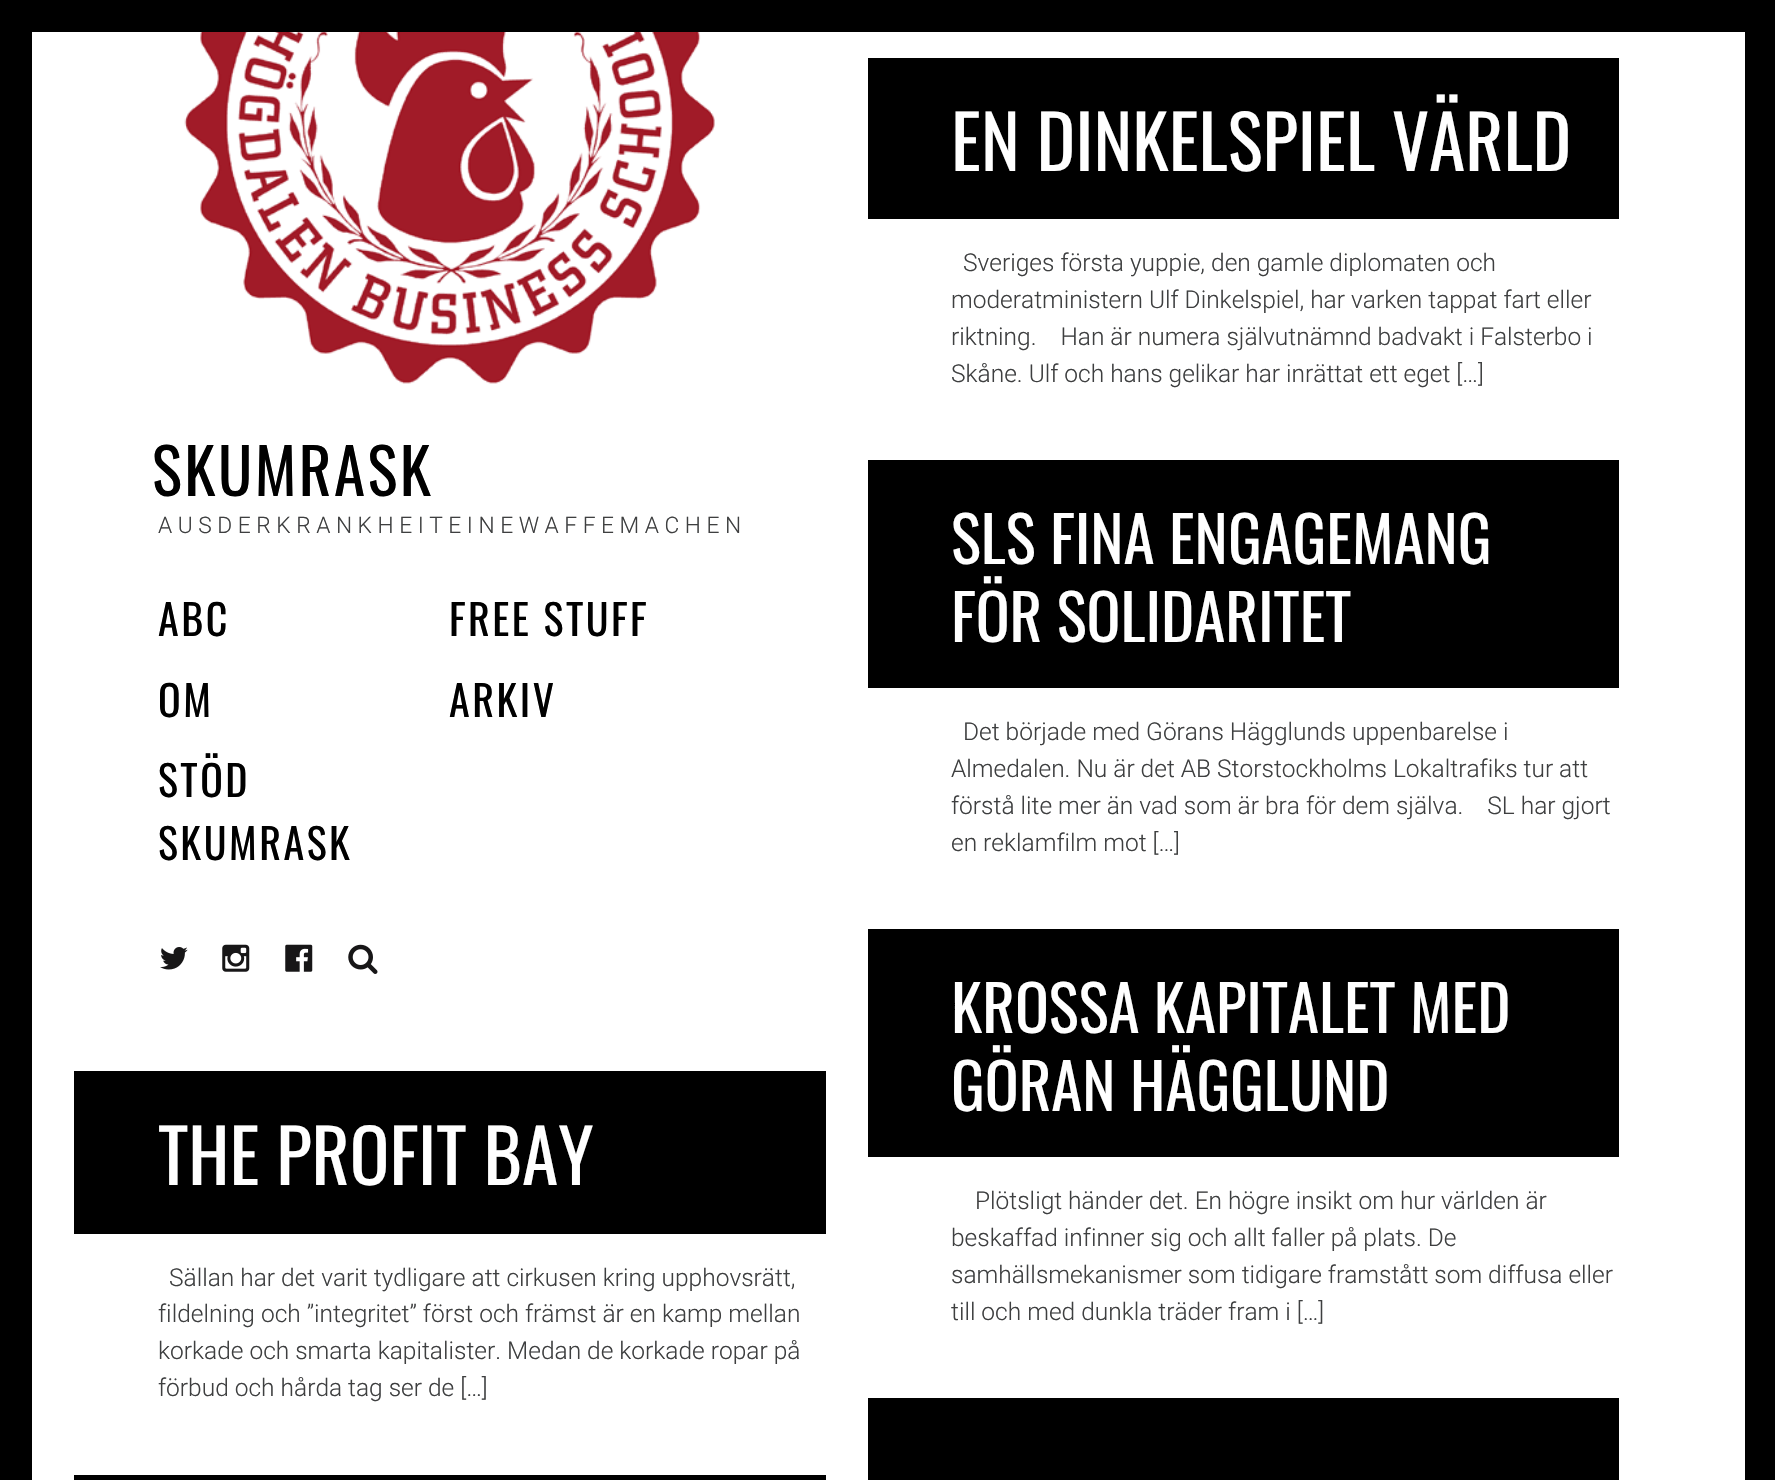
void draw(SkCanvas* canvas) {
    SkPaint paint;
    paint.setAntiAlias(true);
    auto spacedText = [&](const char* s, float x, float y, const SkFont& font, const SkPaint& ink, float letter, float word) {
        std::vector<SkGlyphID> glyphs(font.countText(s, strlen(s), SkTextEncoding::kUTF8));
        std::vector<float> xs(glyphs.size());
        font.textToGlyphs(s, strlen(s), SkTextEncoding::kUTF8, glyphs);
        font.getXPos(glyphs, xs, x);
        float extra = 0;
        for (size_t i = 0; i < glyphs.size(); i++) {
            xs[i] += extra;
            extra += letter + word * (glyphs[i] == font.unicharToGlyph(' '));
        }
        canvas->drawTextBlob(SkTextBlob::MakeFromPosHGlyphs(glyphs, xs, y, font), 0, 0, ink);
    };
    canvas->clear(0xFFFFFFFF);
    paint.setColor(0xFF000000);
    canvas->drawRect(SkRect::MakeXYWH(1745, 32, 30, 1448), paint);
    canvas->drawRect(SkRect::MakeXYWH(0, 32, 32, 1448), paint);
    canvas->drawRect(SkRect::MakeXYWH(0, 0, 1775, 32), paint);
    canvas->drawRect(SkRect::MakeXYWH(868, 58, 751, 161), paint);
    SkFont font1(fontMgr->matchFamilyStyle("Oswald", SkFontStyle::Normal()), 73.5f);
    font1.setSubpixel(true);
    paint.setColor(0xFFFFFFFF);
    canvas->drawString("EN DINKELSPIEL VÄRLD", 951, 171, font1, paint);
    SkFont font2(fontMgr->matchFamilyStyle("Roboto", SkFontStyle(300, SkFontStyle::kNormal_Width, SkFontStyle::kUpright_Slant)), 24.5f);
    font2.setSubpixel(true);
    paint.setColor(0xFF3E3F40);
    canvas->drawString("Sveriges första yuppie, den gamle diplomaten och", 963, 271, font2, paint);
    canvas->drawString("moderatministern Ulf Dinkelspiel, har varken tappat fart eller", 951, 308, font2, paint);
    canvas->drawString("riktning.    Han är numera självutnämnd badvakt i Falsterbo i", 951, 345, font2, paint);
    canvas->drawString("Skåne. Ulf och hans gelikar har inrättat ett eget […]", 951, 382, font2, paint);
    canvas->drawImageRect(SkImages::DeferredFromEncodedData(SkData::MakeFromFileName("img1.png")), SkRect::MakeXYWH(184, 32, 531, 352), SkSamplingOptions());
    SkFont font3(fontMgr->matchFamilyStyle("Oswald", SkFontStyle::Normal()), 63);
    font3.setSubpixel(true);
    paint.setColor(0xFF000000);
    spacedText("SKUMRASK", 152, 496, font3, paint, 2.5f, 0);
    SkFont font4(fontMgr->matchFamilyStyle("Roboto", SkFontStyle(300, SkFontStyle::kNormal_Width, SkFontStyle::kUpright_Slant)), 22.75f);
    font4.setSubpixel(true);
    paint.setColor(0xFF3E3F40);
    canvas->drawString("A U S D E R K R A N K H E I T E I N E W A F F E M A C H E N", 158, 533, font4, paint);
    SkFont font5(fontMgr->matchFamilyStyle("Oswald", SkFontStyle::Normal()), 42);
    font5.setSubpixel(true);
    paint.setColor(0xFF000000);
    spacedText("ABC", 158, 636, font5, paint, 2.5f, 0);
    spacedText("FREE STUFF", 449, 636, font5, paint, 2.5f, 0);
    spacedText("OM", 158, 717, font5, paint, 2.5f, 0);
    spacedText("ARKIV", 449, 717, font5, paint, 2.5f, 0);
    spacedText("STÖD", 158, 797, font5, paint, 2.5f, 0);
    spacedText("SKUMRASK", 158, 860, font5, paint, 2.5f, 0);
    canvas->drawImageRect(SkImages::DeferredFromEncodedData(SkData::MakeFromFileName("img2.png")), SkRect::MakeXYWH(160, 947, 28, 23), SkSamplingOptions());
    canvas->drawImageRect(SkImages::DeferredFromEncodedData(SkData::MakeFromFileName("img3.png")), SkRect::MakeXYWH(222, 944, 28, 28), SkSamplingOptions());
    canvas->drawImageRect(SkImages::DeferredFromEncodedData(SkData::MakeFromFileName("img4.png")), SkRect::MakeXYWH(285, 944, 28, 28), SkSamplingOptions());
    canvas->drawImageRect(SkImages::DeferredFromEncodedData(SkData::MakeFromFileName("img5.png")), SkRect::MakeXYWH(348, 944, 30, 30), SkSamplingOptions());
    canvas->drawRect(SkRect::MakeXYWH(868, 460, 751, 228), paint);
    paint.setColor(0xFFFFFFFF);
    canvas->drawString("SLS FINA ENGAGEMANG", 951, 564, font3, paint);
    canvas->drawString("FÖR SOLIDARITET", 951, 642, font3, paint);
    paint.setColor(0xFF3E3F40);
    canvas->drawString("Det började med Görans Hägglunds uppenbarelse i", 963, 740, font2, paint);
    canvas->drawString("Almedalen. Nu är det AB Storstockholms Lokaltrafiks tur att", 951, 777, font2, paint);
    canvas->drawString("förstå lite mer än vad som är bra för dem själva.    SL har gjort", 951, 814, font2, paint);
    canvas->drawString("en reklamfilm mot […]", 951, 851, font2, paint);
    paint.setColor(0xFF000000);
    canvas->drawRect(SkRect::MakeXYWH(74, 1071, 752, 163), paint);
    paint.setColor(0xFFFFFFFF);
    canvas->drawString("THE PROFIT BAY", 158, 1185, font1, paint);
    paint.setColor(0xFF3E3F40);
    canvas->drawString("Sällan har det varit tydligare att cirkusen kring upphovsrätt,", 169, 1286, font2, paint);
    canvas->drawString("fildelning och ”integritet” först och främst är en kamp mellan", 158, 1322, font2, paint);
    canvas->drawString("korkade och smarta kapitalister. Medan de korkade ropar på", 158, 1359, font2, paint);
    canvas->drawString("förbud och hårda tag ser de […]", 158, 1396, font2, paint);
    paint.setColor(0xFF000000);
    canvas->drawRect(SkRect::MakeXYWH(868, 929, 751, 228), paint);
    paint.setColor(0xFFFFFFFF);
    canvas->drawString("KROSSA KAPITALET MED", 951, 1033, font3, paint);
    canvas->drawString("GÖRAN HÄGGLUND", 951, 1111, font3, paint);
    paint.setColor(0xFF3E3F40);
    canvas->drawString("Plötsligt händer det. En högre insikt om hur världen är", 975, 1209, font2, paint);
    canvas->drawString("beskaffad infinner sig och allt faller på plats. De", 951, 1246, font2, paint);
    canvas->drawString("samhällsmekanismer som tidigare framstått som diffusa eller", 951, 1283, font2, paint);
    canvas->drawString("till och med dunkla träder fram i […]", 951, 1320, font2, paint);
    paint.setColor(0xFF000000);
    canvas->drawRect(SkRect::MakeXYWH(74, 1475, 752, 5), paint);
    canvas->drawRect(SkRect::MakeXYWH(868, 1398, 751, 82), paint);
}
